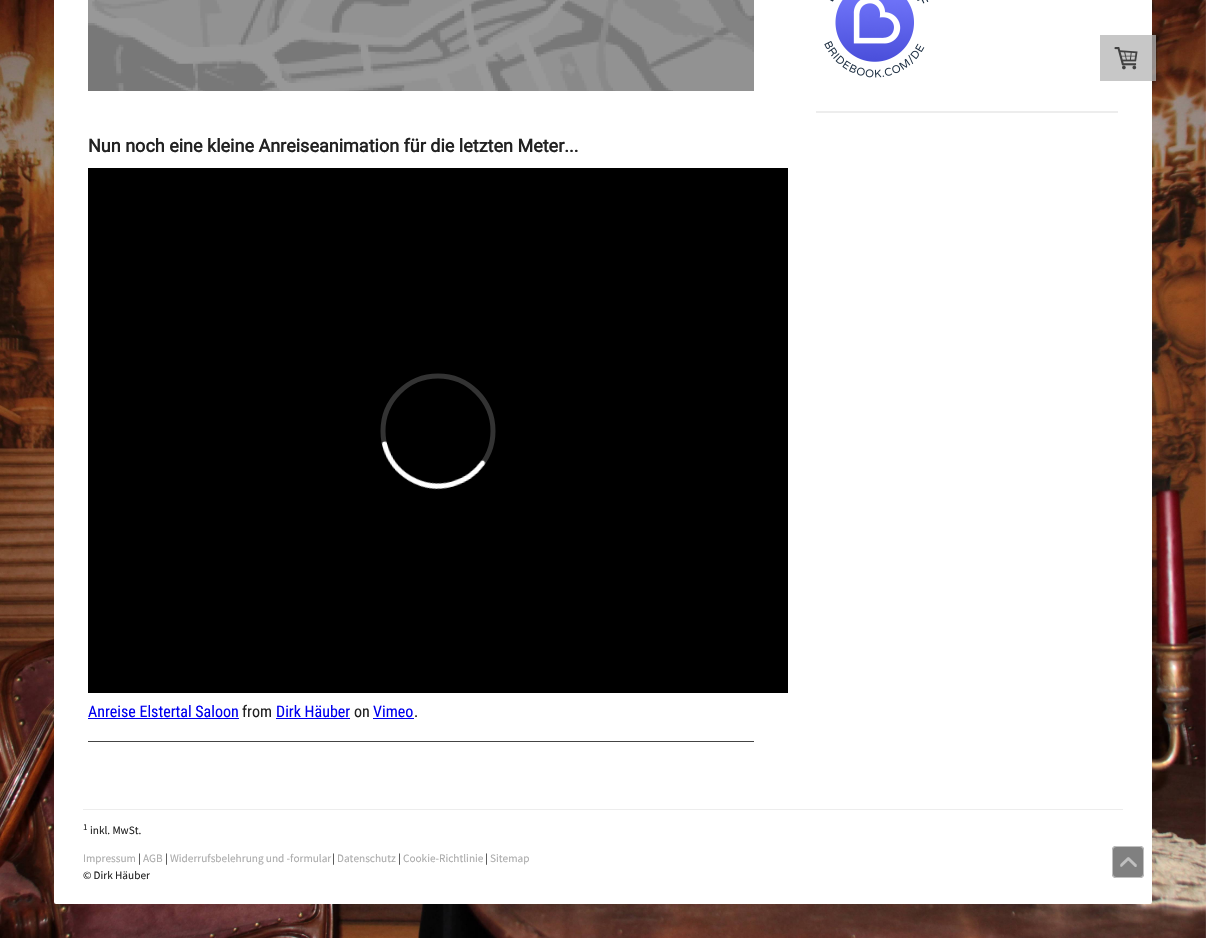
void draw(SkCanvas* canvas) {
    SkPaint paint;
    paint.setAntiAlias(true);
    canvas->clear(0xFFFFFFFF);
    canvas->drawImageRect(SkImages::DeferredFromEncodedData(SkData::MakeFromFileName("img1.png")), SkRect::MakeXYWH(0, 0, 1206, 938), SkSamplingOptions());
    paint.setColor(0xFFFFFFFF);
    canvas->drawRoundRect(SkRect::MakeXYWH(54, -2, 1098, 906), 2, 2, paint);
    paint.setColor(0xBFB4B4B4);
    canvas->drawRect(SkRect::MakeXYWH(1100, 35, 56, 46), paint);
    canvas->drawImageRect(SkImages::DeferredFromEncodedData(SkData::MakeFromFileName("img2.png")), SkRect::MakeXYWH(1114, 47, 24, 23), SkSamplingOptions());
    canvas->drawImageRect(SkImages::DeferredFromEncodedData(SkData::MakeFromFileName("img3.png")), SkRect::MakeXYWH(824, 0, 105, 78), SkSamplingOptions());
    paint.setColor(0xFFEDEDED);
    canvas->drawRect(SkRect::MakeXYWH(816, 111, 302, 2), paint);
    canvas->drawImageRect(SkImages::DeferredFromEncodedData(SkData::MakeFromFileName("img4.png")), SkRect::MakeXYWH(88, 0, 666, 91), SkSamplingOptions());
    SkFont font1(fontMgr->matchFamilyStyle("Roboto", SkFontStyle::Bold()), 18);
    font1.setSubpixel(true);
    paint.setColor(0xFF222222);
    canvas->drawString("Nun noch eine kleine Anreiseanimation für die letzten Meter...", 88, 152, font1, paint);
    canvas->drawImageRect(SkImages::DeferredFromEncodedData(SkData::MakeFromFileName("img5.png")), SkRect::MakeXYWH(88, 168, 700, 525), SkSamplingOptions());
    SkFont font2(fontMgr->matchFamilyStyle("Roboto Condensed", SkFontStyle::Normal()), 16);
    font2.setSubpixel(true);
    paint.setColor(0xFF0000EE);
    canvas->drawString("Anreise Elstertal Saloon", 88, 717, font2, paint);
    canvas->drawRect(SkRect::MakeXYWH(88, 718, 151, 1), paint);
    paint.setColor(0xFF222222);
    canvas->drawString("from", 242, 717, font2, paint);
    paint.setColor(0xFF0000EE);
    canvas->drawString("Dirk Häuber", 276, 717, font2, paint);
    canvas->drawRect(SkRect::MakeXYWH(276, 718, 74, 1), paint);
    paint.setColor(0xFF222222);
    canvas->drawString("on", 354, 717, font2, paint);
    paint.setColor(0xFF0000EE);
    canvas->drawString("Vimeo", 373, 717, font2, paint);
    canvas->drawRect(SkRect::MakeXYWH(373, 718, 41, 1), paint);
    paint.setColor(0xFF222222);
    canvas->drawString(".", 414, 717, font2, paint);
    paint.setColor(0xFF444444);
    canvas->drawRect(SkRect::MakeXYWH(88, 741, 666, 1), paint);
    paint.setColor(0xFFEDEDED);
    canvas->drawRect(SkRect::MakeXYWH(83, 809, 1040, 1), paint);
    SkFont font3(fontMgr->matchFamilyStyle("Source Sans Pro", SkFontStyle::Normal()), 9);
    font3.setSubpixel(true);
    paint.setColor(0xFF222222);
    canvas->drawString("1", 83, 830, font3, paint);
    SkFont font4(fontMgr->matchFamilyStyle("Source Sans Pro", SkFontStyle::Normal()), 11.25f);
    font4.setSubpixel(true);
    canvas->drawString("inkl. MwSt.", 90, 834, font4, paint);
    paint.setColor(0xFFABABAB);
    canvas->drawString("Impressum", 83, 862, font4, paint);
    paint.setColor(0xFF222222);
    canvas->drawString("|", 138, 862, font4, paint);
    paint.setColor(0xFFABABAB);
    canvas->drawString("AGB", 143, 862, font4, paint);
    paint.setColor(0xFF222222);
    canvas->drawString("|", 165, 862, font4, paint);
    paint.setColor(0xFFABABAB);
    canvas->drawString("Widerrufsbelehrung und -formular", 170, 862, font4, paint);
    paint.setColor(0xFF222222);
    canvas->drawString("|", 332, 862, font4, paint);
    paint.setColor(0xFFABABAB);
    canvas->drawString("Datenschutz", 337, 862, font4, paint);
    paint.setColor(0xFF222222);
    canvas->drawString("|", 398, 862, font4, paint);
    paint.setColor(0xFFABABAB);
    canvas->drawString("Cookie-Richtlinie", 403, 862, font4, paint);
    paint.setColor(0xFF222222);
    canvas->drawString("|", 485, 862, font4, paint);
    paint.setColor(0xFFABABAB);
    canvas->drawString("Sitemap", 490, 862, font4, paint);
    paint.setColor(0xFF222222);
    canvas->drawString("© Dirk Häuber", 83, 879, font4, paint);
    paint.setColor(0xFF808080);
    canvas->drawRoundRect(SkRect::MakeXYWH(1112, 846, 32, 32), 4, 4, paint);
    paint.setStyle(SkPaint::kStroke_Style);
    paint.setStrokeWidth(1);
    paint.setColor(0x80FFFFFF);
    canvas->drawRoundRect(SkRect::MakeXYWH(1112.5f, 846.5f, 31, 31), 3.5f, 3.5f, paint);
    canvas->drawImageRect(SkImages::DeferredFromEncodedData(SkData::MakeFromFileName("img6.png")), SkRect::MakeXYWH(1120, 857, 17, 10), SkSamplingOptions());
}
